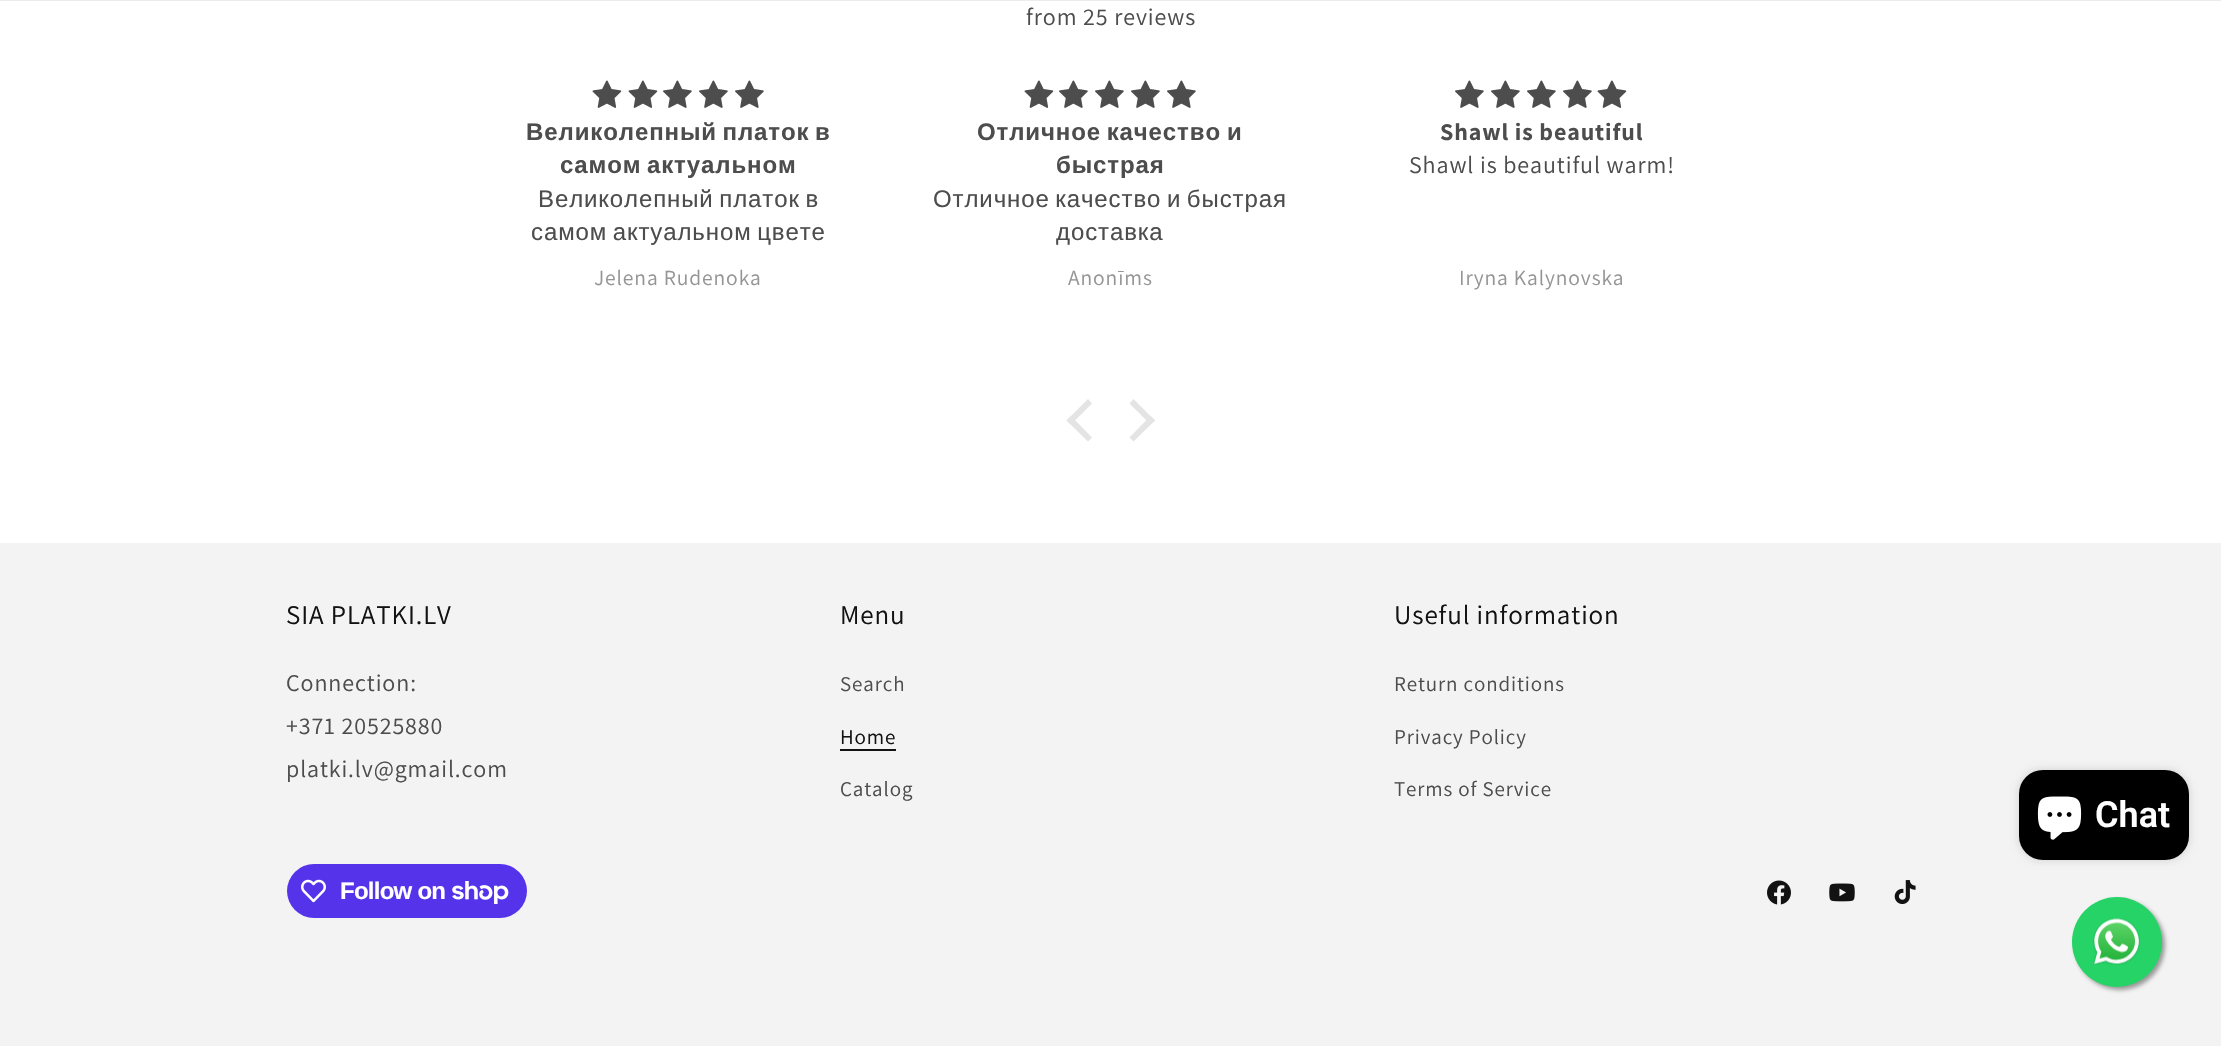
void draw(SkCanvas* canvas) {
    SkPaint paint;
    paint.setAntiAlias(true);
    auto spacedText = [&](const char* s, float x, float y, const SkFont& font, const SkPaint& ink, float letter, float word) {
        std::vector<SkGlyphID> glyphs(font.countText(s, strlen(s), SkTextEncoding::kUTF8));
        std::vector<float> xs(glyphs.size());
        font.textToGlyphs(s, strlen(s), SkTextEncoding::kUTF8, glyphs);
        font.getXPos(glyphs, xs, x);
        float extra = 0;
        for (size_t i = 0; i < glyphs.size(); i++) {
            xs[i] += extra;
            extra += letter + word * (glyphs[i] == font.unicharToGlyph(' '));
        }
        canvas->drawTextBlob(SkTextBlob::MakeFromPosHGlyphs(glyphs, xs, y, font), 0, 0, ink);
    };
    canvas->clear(0xFFFFFFFF);
    paint.setColor(0xFFECECEC);
    canvas->drawRect(SkRect::MakeXYWH(0, 0, 2221, 1), paint);
    SkFont font1(fontMgr->matchFamilyStyle("Assistant", SkFontStyle::Normal()), 24);
    font1.setSubpixel(true);
    paint.setColor(0xFF4D4D4D);
    spacedText("from 25 reviews", 1026, 25, font1, paint, 0.9f, 0);
    canvas->drawImageRect(SkImages::DeferredFromEncodedData(SkData::MakeFromFileName("img1.png")), SkRect::MakeXYWH(592, 80, 30, 28), SkSamplingOptions());
    canvas->drawImageRect(SkImages::DeferredFromEncodedData(SkData::MakeFromFileName("img1.png")), SkRect::MakeXYWH(628, 80, 30, 28), SkSamplingOptions());
    canvas->drawImageRect(SkImages::DeferredFromEncodedData(SkData::MakeFromFileName("img2.png")), SkRect::MakeXYWH(663, 80, 29, 28), SkSamplingOptions());
    canvas->drawImageRect(SkImages::DeferredFromEncodedData(SkData::MakeFromFileName("img2.png")), SkRect::MakeXYWH(699, 80, 29, 28), SkSamplingOptions());
    canvas->drawImageRect(SkImages::DeferredFromEncodedData(SkData::MakeFromFileName("img2.png")), SkRect::MakeXYWH(735, 80, 29, 28), SkSamplingOptions());
    SkFont font2(fontMgr->matchFamilyStyle("Liberation Sans", SkFontStyle::Bold()), 24);
    font2.setSubpixel(true);
    spacedText("Великолепный платок в", 526, 140, font2, paint, 0.9f, -2);
    spacedText("самом актуальном", 560, 173, font2, paint, 0.9f, -2);
    SkFont font3(fontMgr->matchFamilyStyle("Liberation Sans", SkFontStyle::Normal()), 24);
    font3.setSubpixel(true);
    spacedText("Великолепный платок в", 538, 207, font3, paint, 0.9f, -2);
    spacedText("самом актуальном цвете", 531, 240, font3, paint, 0.9f, -2);
    SkFont font4(fontMgr->matchFamilyStyle("Assistant", SkFontStyle::Normal()), 21.5f);
    font4.setSubpixel(true);
    paint.setColor(0xFF959595);
    spacedText("Jelena Rudenoka", 594, 285, font4, paint, 0.9f, 0);
    canvas->drawImageRect(SkImages::DeferredFromEncodedData(SkData::MakeFromFileName("img1.png")), SkRect::MakeXYWH(1024, 80, 30, 28), SkSamplingOptions());
    canvas->drawImageRect(SkImages::DeferredFromEncodedData(SkData::MakeFromFileName("img2.png")), SkRect::MakeXYWH(1059, 80, 29, 28), SkSamplingOptions());
    canvas->drawImageRect(SkImages::DeferredFromEncodedData(SkData::MakeFromFileName("img2.png")), SkRect::MakeXYWH(1095, 80, 29, 28), SkSamplingOptions());
    canvas->drawImageRect(SkImages::DeferredFromEncodedData(SkData::MakeFromFileName("img2.png")), SkRect::MakeXYWH(1131, 80, 29, 28), SkSamplingOptions());
    canvas->drawImageRect(SkImages::DeferredFromEncodedData(SkData::MakeFromFileName("img2.png")), SkRect::MakeXYWH(1167, 80, 29, 28), SkSamplingOptions());
    paint.setColor(0xFF4D4D4D);
    spacedText("Отличное качество", 977, 140, font2, paint, 0.9f, -2);
    spacedText("и", 1227, 140, font2, paint, 0.9f, 0);
    spacedText("быстрая", 1056, 173, font2, paint, 0.9f, 0);
    spacedText("Отличное качество", 933, 207, font3, paint, 0.9f, -2);
    spacedText("и быстрая", 1167, 207, font3, paint, 0.9f, -2);
    spacedText("доставка", 1056, 240, font3, paint, 0.9f, 0);
    paint.setColor(0xFF959595);
    spacedText("Anonīms", 1068, 285, font4, paint, 0.9f, 0);
    canvas->drawImageRect(SkImages::DeferredFromEncodedData(SkData::MakeFromFileName("img2.png")), SkRect::MakeXYWH(1455, 80, 29, 28), SkSamplingOptions());
    canvas->drawImageRect(SkImages::DeferredFromEncodedData(SkData::MakeFromFileName("img2.png")), SkRect::MakeXYWH(1491, 80, 29, 28), SkSamplingOptions());
    canvas->drawImageRect(SkImages::DeferredFromEncodedData(SkData::MakeFromFileName("img2.png")), SkRect::MakeXYWH(1527, 80, 29, 28), SkSamplingOptions());
    canvas->drawImageRect(SkImages::DeferredFromEncodedData(SkData::MakeFromFileName("img2.png")), SkRect::MakeXYWH(1563, 80, 29, 28), SkSamplingOptions());
    canvas->drawImageRect(SkImages::DeferredFromEncodedData(SkData::MakeFromFileName("img1.png")), SkRect::MakeXYWH(1597, 80, 30, 28), SkSamplingOptions());
    SkFont font5(fontMgr->matchFamilyStyle("Assistant", SkFontStyle::Bold()), 24);
    font5.setSubpixel(true);
    paint.setColor(0xFF4D4D4D);
    spacedText("Shawl is beautiful", 1440, 140, font5, paint, 0.9f, 0);
    spacedText("Shawl is beautiful warm!", 1409, 173, font1, paint, 0.9f, 0);
    paint.setColor(0xFF959595);
    spacedText("Iryna Kalynovska", 1459, 285, font4, paint, 0.9f, 0);
    paint.setColor(0xFFE4E4E4);
    canvas->drawPath(SkPathBuilder().moveTo(1066.5f, 420.5f).lineTo(1088, 399).lineTo(1092, 403.5f).lineTo(1071, 424.5f).close().detach(), paint);
    canvas->drawPath(SkPathBuilder().moveTo(1066.5f, 420.5f).lineTo(1071, 416).lineTo(1092, 437.5f).lineTo(1088, 441.5f).close().detach(), paint);
    canvas->drawPath(SkPathBuilder().moveTo(1129.5f, 403.5f).lineTo(1133.5f, 399).lineTo(1155, 420.5f).lineTo(1150.5f, 424.5f).close().detach(), paint);
    canvas->drawPath(SkPathBuilder().moveTo(1129.5f, 437.5f).lineTo(1150.5f, 416).lineTo(1155, 420.5f).lineTo(1133.5f, 441.5f).close().detach(), paint);
    paint.setColor(0xFFF3F3F3);
    canvas->drawRect(SkRect::MakeXYWH(0, 543, 2221, 503), paint);
    SkFont font6(fontMgr->matchFamilyStyle("Assistant", SkFontStyle::Normal()), 27);
    font6.setSubpixel(true);
    paint.setColor(0xFF121212);
    spacedText("SIA PLATKI.LV", 286, 624, font6, paint, 0.9f, 0);
    paint.setColor(0xFF4D4D4D);
    spacedText("Connection:", 286, 691, font1, paint, 0.9f, 0);
    spacedText("+371 20525880", 286, 734, font1, paint, 0.9f, 0);
    spacedText("platki.lv@gmail.com", 286, 777, font1, paint, 0.9f, 0);
    paint.setColor(0xFF121212);
    spacedText("Menu", 840, 624, font6, paint, 0.9f, 0);
    SkFont font7(fontMgr->matchFamilyStyle("Assistant", SkFontStyle::Normal()), 21);
    font7.setSubpixel(true);
    paint.setColor(0xFF4D4D4D);
    spacedText("Search", 840, 691, font7, paint, 0.9f, 0);
    paint.setColor(0xFF121212);
    spacedText("Home", 840, 744, font7, paint, 0.9f, 0);
    canvas->drawRect(SkRect::MakeXYWH(840, 749, 56, 2), paint);
    paint.setColor(0xFF4D4D4D);
    spacedText("Catalog", 840, 796, font7, paint, 0.9f, 0);
    paint.setColor(0xFF121212);
    spacedText("Useful information", 1394, 624, font6, paint, 0.9f, 0);
    paint.setColor(0xFF4D4D4D);
    spacedText("Return conditions", 1394, 691, font7, paint, 0.9f, 0);
    spacedText("Privacy Policy", 1394, 744, font7, paint, 0.9f, 0);
    spacedText("Terms of Service", 1394, 796, font7, paint, 0.9f, 0);
    paint.setColor(0xFF5433EB);
    canvas->drawRoundRect(SkRect::MakeXYWH(287, 864, 240, 54), 27, 27, paint);
    canvas->drawImageRect(SkImages::DeferredFromEncodedData(SkData::MakeFromFileName("img3.png")), SkRect::MakeXYWH(301, 879, 25, 24), SkSamplingOptions());
    paint.setColor(0xFFFFFFFF);
    spacedText("Follow on", 340, 899, font2, paint, -0.75f, 0);
    canvas->drawImageRect(SkImages::DeferredFromEncodedData(SkData::MakeFromFileName("img4.png")), SkRect::MakeXYWH(452, 881, 57, 23), SkSamplingOptions());
    canvas->drawImageRect(SkImages::DeferredFromEncodedData(SkData::MakeFromFileName("img5.png")), SkRect::MakeXYWH(1767, 880, 24, 25), SkSamplingOptions());
    canvas->drawImageRect(SkImages::DeferredFromEncodedData(SkData::MakeFromFileName("img6.png")), SkRect::MakeXYWH(1829, 883, 26, 19), SkSamplingOptions());
    canvas->drawImageRect(SkImages::DeferredFromEncodedData(SkData::MakeFromFileName("img7.png")), SkRect::MakeXYWH(1894, 880, 22, 25), SkSamplingOptions());
    paint.setColor(0x26000000);
    paint.setMaskFilter(SkMaskFilter::MakeBlur(kNormal_SkBlurStyle, 4));
    canvas->drawRoundRect(SkRect::MakeXYWH(2019, 770, 170, 90), 24, 24, paint);
    paint.setMaskFilter(nullptr);
    paint.setColor(0xFF000000);
    canvas->drawRoundRect(SkRect::MakeXYWH(2019, 770, 170, 90), 24, 24, paint);
    canvas->drawImageRect(SkImages::DeferredFromEncodedData(SkData::MakeFromFileName("img8.png")), SkRect::MakeXYWH(2037, 796, 45, 44), SkSamplingOptions());
    SkFont font8(fontMgr->matchFamilyStyle("Roboto", SkFontStyle(600, SkFontStyle::kNormal_Width, SkFontStyle::kUpright_Slant)), 36);
    font8.setSubpixel(true);
    paint.setColor(0xFFFFFFFF);
    canvas->drawString("Chat", 2095, 827, font8, paint);
    paint.setColor(0xFF999999);
    paint.setMaskFilter(SkMaskFilter::MakeBlur(kNormal_SkBlurStyle, 2));
    canvas->drawRoundRect(SkRect::MakeXYWH(2075, 900, 90, 90), 45, 45, paint);
    paint.setMaskFilter(nullptr);
    paint.setColor(0xFF25D366);
    canvas->drawCircle(2117, 942, 45, paint);
    canvas->drawImageRect(SkImages::DeferredFromEncodedData(SkData::MakeFromFileName("img9.png")), SkRect::MakeXYWH(2093, 918, 47, 47), SkSamplingOptions());
}
